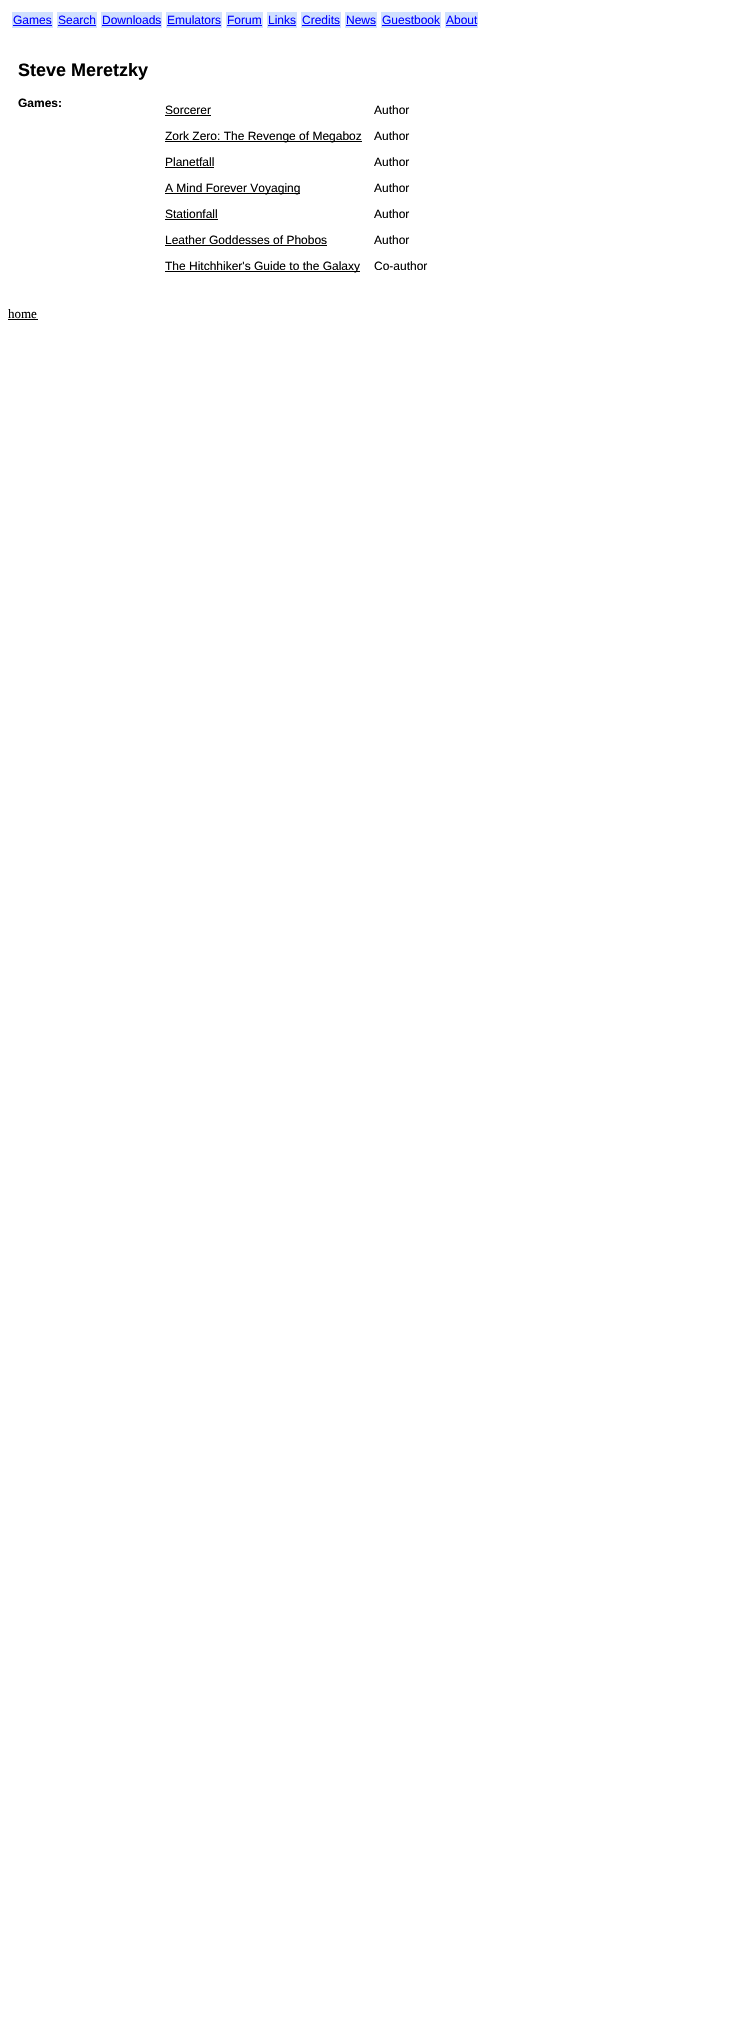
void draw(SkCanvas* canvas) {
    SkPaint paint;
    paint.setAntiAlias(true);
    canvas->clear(0xFFFFFFFF);
    paint.setColor(0xFFD0E0FF);
    canvas->drawRect(SkRect::MakeXYWH(12, 12, 41, 16), paint);
    SkFont font1(fontMgr->matchFamilyStyle("Liberation Sans", SkFontStyle::Normal()), 12);
    font1.setSubpixel(true);
    paint.setColor(0xFF0000FF);
    canvas->drawString("Games", 13, 24, font1, paint);
    canvas->drawRect(SkRect::MakeXYWH(13, 25, 39, 1), paint);
    paint.setColor(0xFFD0E0FF);
    canvas->drawRect(SkRect::MakeXYWH(57, 12, 40, 16), paint);
    paint.setColor(0xFF0000FF);
    canvas->drawString("Search", 58, 24, font1, paint);
    canvas->drawRect(SkRect::MakeXYWH(58, 25, 38, 1), paint);
    paint.setColor(0xFFD0E0FF);
    canvas->drawRect(SkRect::MakeXYWH(101, 12, 61, 16), paint);
    paint.setColor(0xFF0000FF);
    canvas->drawString("Downloads", 102, 24, font1, paint);
    canvas->drawRect(SkRect::MakeXYWH(102, 25, 59, 1), paint);
    paint.setColor(0xFFD0E0FF);
    canvas->drawRect(SkRect::MakeXYWH(166, 12, 56, 16), paint);
    paint.setColor(0xFF0000FF);
    canvas->drawString("Emulators", 167, 24, font1, paint);
    canvas->drawRect(SkRect::MakeXYWH(167, 25, 54, 1), paint);
    paint.setColor(0xFFD0E0FF);
    canvas->drawRect(SkRect::MakeXYWH(226, 12, 37, 16), paint);
    paint.setColor(0xFF0000FF);
    canvas->drawString("Forum", 227, 24, font1, paint);
    canvas->drawRect(SkRect::MakeXYWH(227, 25, 35, 1), paint);
    paint.setColor(0xFFD0E0FF);
    canvas->drawRect(SkRect::MakeXYWH(267, 12, 30, 16), paint);
    paint.setColor(0xFF0000FF);
    canvas->drawString("Links", 268, 24, font1, paint);
    canvas->drawRect(SkRect::MakeXYWH(268, 25, 28, 1), paint);
    paint.setColor(0xFFD0E0FF);
    canvas->drawRect(SkRect::MakeXYWH(301, 12, 40, 16), paint);
    paint.setColor(0xFF0000FF);
    canvas->drawString("Credits", 302, 24, font1, paint);
    canvas->drawRect(SkRect::MakeXYWH(302, 25, 38, 1), paint);
    paint.setColor(0xFFD0E0FF);
    canvas->drawRect(SkRect::MakeXYWH(345, 12, 32, 16), paint);
    paint.setColor(0xFF0000FF);
    canvas->drawString("News", 346, 24, font1, paint);
    canvas->drawRect(SkRect::MakeXYWH(346, 25, 30, 1), paint);
    paint.setColor(0xFFD0E0FF);
    canvas->drawRect(SkRect::MakeXYWH(381, 12, 60, 16), paint);
    paint.setColor(0xFF0000FF);
    canvas->drawString("Guestbook", 382, 24, font1, paint);
    canvas->drawRect(SkRect::MakeXYWH(382, 25, 58, 1), paint);
    paint.setColor(0xFFD0E0FF);
    canvas->drawRect(SkRect::MakeXYWH(445, 12, 33, 16), paint);
    paint.setColor(0xFF0000FF);
    canvas->drawString("About", 446, 24, font1, paint);
    canvas->drawRect(SkRect::MakeXYWH(446, 25, 31, 1), paint);
    SkFont font2(fontMgr->matchFamilyStyle("Liberation Sans", SkFontStyle::Bold()), 18);
    font2.setSubpixel(true);
    paint.setColor(0xFF000000);
    canvas->drawString("Steve Meretzky", 18, 76, font2, paint);
    SkFont font3(fontMgr->matchFamilyStyle("Liberation Sans", SkFontStyle::Bold()), 12);
    font3.setSubpixel(true);
    canvas->drawString("Games:", 18, 107, font3, paint);
    canvas->drawString("Sorcerer", 165, 114, font1, paint);
    canvas->drawRect(SkRect::MakeXYWH(165, 115, 46, 1), paint);
    canvas->drawString("Author", 374, 114, font1, paint);
    canvas->drawRect(SkRect::MakeXYWH(165, 141, 197, 1), paint);
    canvas->drawString("Zork Zero: The Revenge of Megaboz", 165, 140, font1, paint);
    canvas->drawString("Author", 374, 140, font1, paint);
    canvas->drawString("Planetfall", 165, 166, font1, paint);
    canvas->drawRect(SkRect::MakeXYWH(165, 167, 49, 1), paint);
    canvas->drawString("Author", 374, 166, font1, paint);
    canvas->drawRect(SkRect::MakeXYWH(165, 193, 135, 1), paint);
    canvas->drawString("A Mind Forever Voyaging", 165, 192, font1, paint);
    canvas->drawString("Author", 374, 192, font1, paint);
    canvas->drawString("Stationfall", 165, 218, font1, paint);
    canvas->drawRect(SkRect::MakeXYWH(165, 219, 53, 1), paint);
    canvas->drawString("Author", 374, 218, font1, paint);
    canvas->drawString("Leather Goddesses of Phobos", 165, 244, font1, paint);
    canvas->drawRect(SkRect::MakeXYWH(165, 245, 162, 1), paint);
    canvas->drawString("Author", 374, 244, font1, paint);
    canvas->drawRect(SkRect::MakeXYWH(165, 271, 195, 1), paint);
    canvas->drawString("The Hitchhiker's Guide to the Galaxy", 165, 270, font1, paint);
    canvas->drawString("Co-author", 374, 270, font1, paint);
    SkFont font4(fontMgr->matchFamilyStyle("Liberation Serif", SkFontStyle::Normal()), 13);
    font4.setSubpixel(true);
    canvas->drawString("home", 8, 318, font4, paint);
    canvas->drawRect(SkRect::MakeXYWH(8, 319, 30, 1), paint);
}
